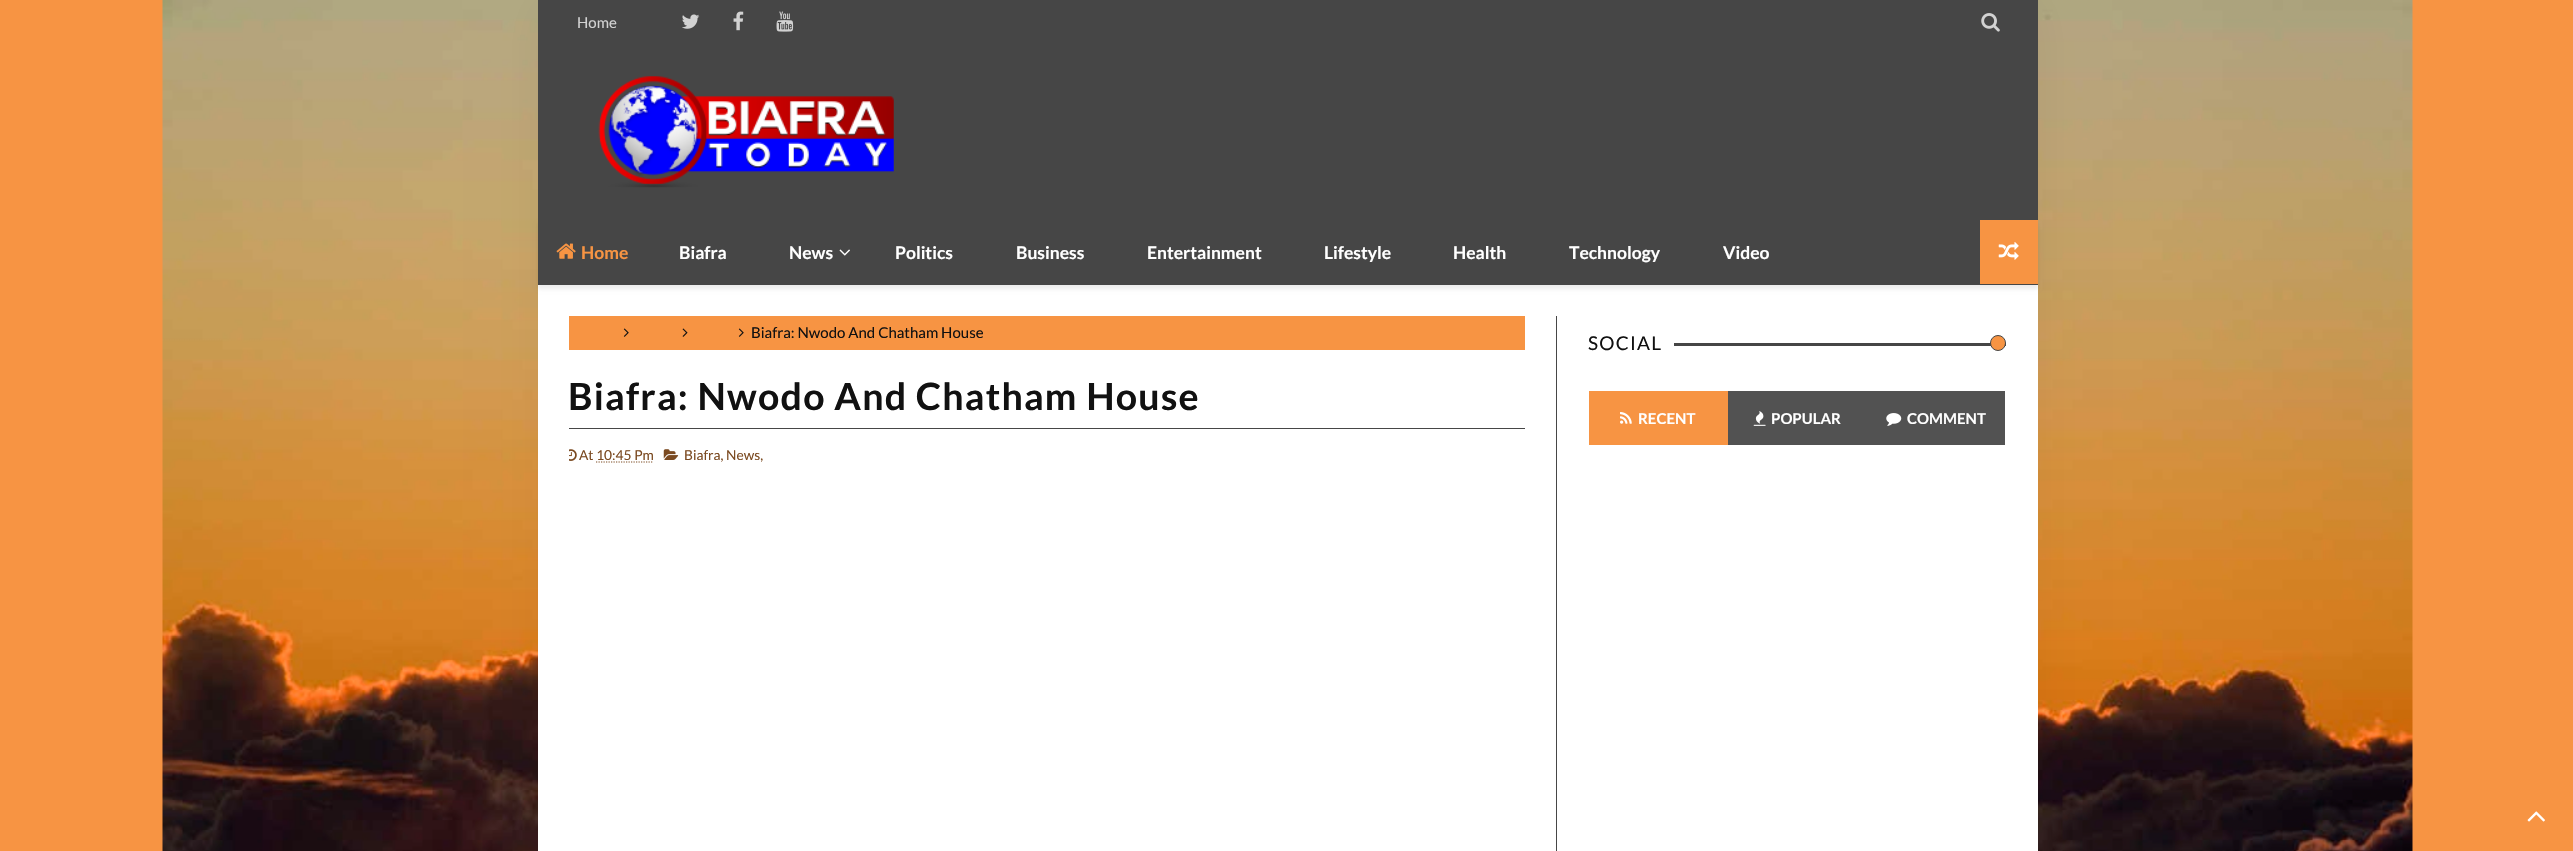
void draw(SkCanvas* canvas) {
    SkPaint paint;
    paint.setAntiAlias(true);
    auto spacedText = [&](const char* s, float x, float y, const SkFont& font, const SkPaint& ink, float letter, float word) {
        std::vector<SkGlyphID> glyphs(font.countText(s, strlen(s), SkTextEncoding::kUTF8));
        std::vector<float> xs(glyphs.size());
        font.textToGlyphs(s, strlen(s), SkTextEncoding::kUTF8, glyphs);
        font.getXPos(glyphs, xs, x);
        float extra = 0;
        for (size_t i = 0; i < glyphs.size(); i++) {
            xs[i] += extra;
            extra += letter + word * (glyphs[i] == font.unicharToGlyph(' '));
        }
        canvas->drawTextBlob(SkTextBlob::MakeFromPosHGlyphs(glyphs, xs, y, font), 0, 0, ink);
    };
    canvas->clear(0xFFF79443);
    canvas->drawImageRect(SkImages::DeferredFromEncodedData(SkData::MakeFromFileName("img1.png")), SkRect::MakeXYWH(162, 0, 2251, 851), SkSamplingOptions());
    paint.setColor(0x0D000000);
    paint.setMaskFilter(SkMaskFilter::MakeBlur(kNormal_SkBlurStyle, 25));
    canvas->drawRect(SkRect::MakeXYWH(538, 0, 1500, 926), paint);
    paint.setMaskFilter(nullptr);
    paint.setColor(0xFF464646);
    canvas->drawRect(SkRect::MakeXYWH(538, 0, 1500, 219), paint);
    SkFont font1(fontMgr->matchFamilyStyle("Lato", SkFontStyle::Normal()), 15);
    font1.setSubpixel(true);
    paint.setColor(0xFFD2D2D2);
    canvas->drawString("Home", 577, 28, font1, paint);
    canvas->drawImageRect(SkImages::DeferredFromEncodedData(SkData::MakeFromFileName("img2.png")), SkRect::MakeXYWH(682, 14, 18, 15), SkSamplingOptions());
    canvas->drawImageRect(SkImages::DeferredFromEncodedData(SkData::MakeFromFileName("img3.png")), SkRect::MakeXYWH(733, 11, 11, 20), SkSamplingOptions());
    canvas->drawImageRect(SkImages::DeferredFromEncodedData(SkData::MakeFromFileName("img4.png")), SkRect::MakeXYWH(776, 11, 18, 21), SkSamplingOptions());
    canvas->drawImageRect(SkImages::DeferredFromEncodedData(SkData::MakeFromFileName("img5.png")), SkRect::MakeXYWH(1981, 13, 19, 19), SkSamplingOptions());
    canvas->drawImageRect(SkImages::DeferredFromEncodedData(SkData::MakeFromFileName("img6.png")), SkRect::MakeXYWH(598, 76, 296, 112), SkSamplingOptions());
    paint.setColor(0xFFFFFFFF);
    canvas->drawRect(SkRect::MakeXYWH(538, 285, 1500, 566), paint);
    paint.setColor(0x12000000);
    paint.setMaskFilter(SkMaskFilter::MakeBlur(kNormal_SkBlurStyle, 2));
    canvas->drawRect(SkRect::MakeXYWH(538, 223, 1500, 66), paint);
    paint.setMaskFilter(nullptr);
    paint.setColor(0xFF464646);
    canvas->drawRect(SkRect::MakeXYWH(538, 219, 1500, 66), paint);
    canvas->drawImageRect(SkImages::DeferredFromEncodedData(SkData::MakeFromFileName("img7.png")), SkRect::MakeXYWH(556, 243, 20, 16), SkSamplingOptions());
    SkFont font2(fontMgr->matchFamilyStyle("Lato", SkFontStyle::Bold()), 17.5f);
    font2.setSubpixel(true);
    paint.setColor(0xFFF79443);
    canvas->drawString("Home", 581, 259, font2, paint);
    paint.setColor(0xFFFFFFFF);
    canvas->drawString("Biafra", 679, 259, font2, paint);
    canvas->drawString("News", 789, 259, font2, paint);
    canvas->drawImageRect(SkImages::DeferredFromEncodedData(SkData::MakeFromFileName("img8.png")), SkRect::MakeXYWH(839, 249, 11, 7), SkSamplingOptions());
    canvas->drawString("Politics", 895, 259, font2, paint);
    canvas->drawString("Business", 1016, 259, font2, paint);
    canvas->drawString("Entertainment", 1147, 259, font2, paint);
    canvas->drawString("Lifestyle", 1324, 259, font2, paint);
    canvas->drawString("Health", 1453, 259, font2, paint);
    canvas->drawString("Technology", 1569, 259, font2, paint);
    canvas->drawString("Video", 1723, 259, font2, paint);
    paint.setColor(0xFFF79443);
    canvas->drawRect(SkRect::MakeXYWH(1980, 220, 58, 64), paint);
    canvas->drawImageRect(SkImages::DeferredFromEncodedData(SkData::MakeFromFileName("img9.png")), SkRect::MakeXYWH(1998, 242, 21, 18), SkSamplingOptions());
    paint.setColor(0xFF464646);
    canvas->drawRect(SkRect::MakeXYWH(1556, 316, 1, 535), paint);
    paint.setColor(0xFFF79443);
    canvas->drawRect(SkRect::MakeXYWH(569, 316, 956, 34), paint);
    canvas->drawImageRect(SkImages::DeferredFromEncodedData(SkData::MakeFromFileName("img10.png")), SkRect::MakeXYWH(623, 328, 6, 9), SkSamplingOptions());
    canvas->drawImageRect(SkImages::DeferredFromEncodedData(SkData::MakeFromFileName("img11.png")), SkRect::MakeXYWH(682, 328, 6, 9), SkSamplingOptions());
    canvas->drawImageRect(SkImages::DeferredFromEncodedData(SkData::MakeFromFileName("img10.png")), SkRect::MakeXYWH(738, 328, 6, 9), SkSamplingOptions());
    paint.setColor(0xFF111111);
    canvas->drawString("Biafra: Nwodo And Chatham House", 751, 338, font1, paint);
    paint.setColor(0xFF464646);
    canvas->drawRect(SkRect::MakeXYWH(569, 428, 956, 1), paint);
    SkFont font3(fontMgr->matchFamilyStyle("Lato", SkFontStyle::Bold()), 37.5f);
    font3.setSubpixel(true);
    paint.setColor(0xFF111111);
    spacedText("Biafra: Nwodo And Chatham House", 568, 410, font3, paint, 1.25f, 0);
    canvas->drawImageRect(SkImages::DeferredFromEncodedData(SkData::MakeFromFileName("img12.png")), SkRect::MakeXYWH(569, 449, 8, 12), SkSamplingOptions());
    SkFont font4(fontMgr->matchFamilyStyle("Lato", SkFontStyle::Normal()), 13.75f);
    font4.setSubpixel(true);
    paint.setColor(0xFF7B4A21);
    canvas->drawString("At 10:45 Pm", 579, 460, font4, paint);
    paint.setStyle(SkPaint::kStroke_Style);
    paint.setStrokeWidth(1.2f);
    paint.setPathEffect(SkDashPathEffect::Make({{1.25f, 1.25f}}, 0));
    canvas->drawPath(SkPathBuilder().moveTo(596, 462).lineTo(653.5f, 462).detach(), paint);
    paint.setPathEffect(nullptr);
    canvas->drawImageRect(SkImages::DeferredFromEncodedData(SkData::MakeFromFileName("img13.png")), SkRect::MakeXYWH(663, 449, 16, 11), SkSamplingOptions());
    paint.setStyle(SkPaint::kFill_Style);
    canvas->drawString("Biafra, News,", 684, 460, font4, paint);
    SkFont font5(fontMgr->matchFamilyStyle("Lato", SkFontStyle::Normal()), 19);
    font5.setSubpixel(true);
    paint.setColor(0xFF111111);
    spacedText("SOCIAL", 1588, 350, font5, paint, 1.25f, 0);
    paint.setColor(0xFF464646);
    canvas->drawRect(SkRect::MakeXYWH(1674, 343, 332, 3), paint);
    paint.setColor(0xFFF79443);
    canvas->drawCircle(1998, 343, 7.5f, paint);
    paint.setStyle(SkPaint::kStroke_Style);
    paint.setStrokeWidth(1);
    paint.setColor(0xFF464646);
    canvas->drawCircle(1998, 343, 7.5f, paint);
    paint.setStyle(SkPaint::kFill_Style);
    paint.setColor(0xFFF79443);
    canvas->drawRect(SkRect::MakeXYWH(1589, 391, 139, 54), paint);
    canvas->drawImageRect(SkImages::DeferredFromEncodedData(SkData::MakeFromFileName("img14.png")), SkRect::MakeXYWH(1620, 412, 12, 12), SkSamplingOptions());
    SkFont font6(fontMgr->matchFamilyStyle("Lato", SkFontStyle::Bold()), 15);
    font6.setSubpixel(true);
    paint.setColor(0xFFFFFFFF);
    canvas->drawString("RECENT", 1638, 424, font6, paint);
    paint.setColor(0xFF525252);
    canvas->drawRect(SkRect::MakeXYWH(1728, 391, 277, 54), paint);
    canvas->drawImageRect(SkImages::DeferredFromEncodedData(SkData::MakeFromFileName("img15.png")), SkRect::MakeXYWH(1753, 411, 13, 15), SkSamplingOptions());
    paint.setColor(0xFFFFFFFF);
    canvas->drawString("POPULAR", 1771, 424, font6, paint);
    canvas->drawImageRect(SkImages::DeferredFromEncodedData(SkData::MakeFromFileName("img16.png")), SkRect::MakeXYWH(1886, 413, 16, 13), SkSamplingOptions());
    canvas->drawString("COMMENT", 1907, 424, font6, paint);
    canvas->drawImageRect(SkImages::DeferredFromEncodedData(SkData::MakeFromFileName("img17.png")), SkRect::MakeXYWH(2527, 811, 18, 11), SkSamplingOptions());
}
